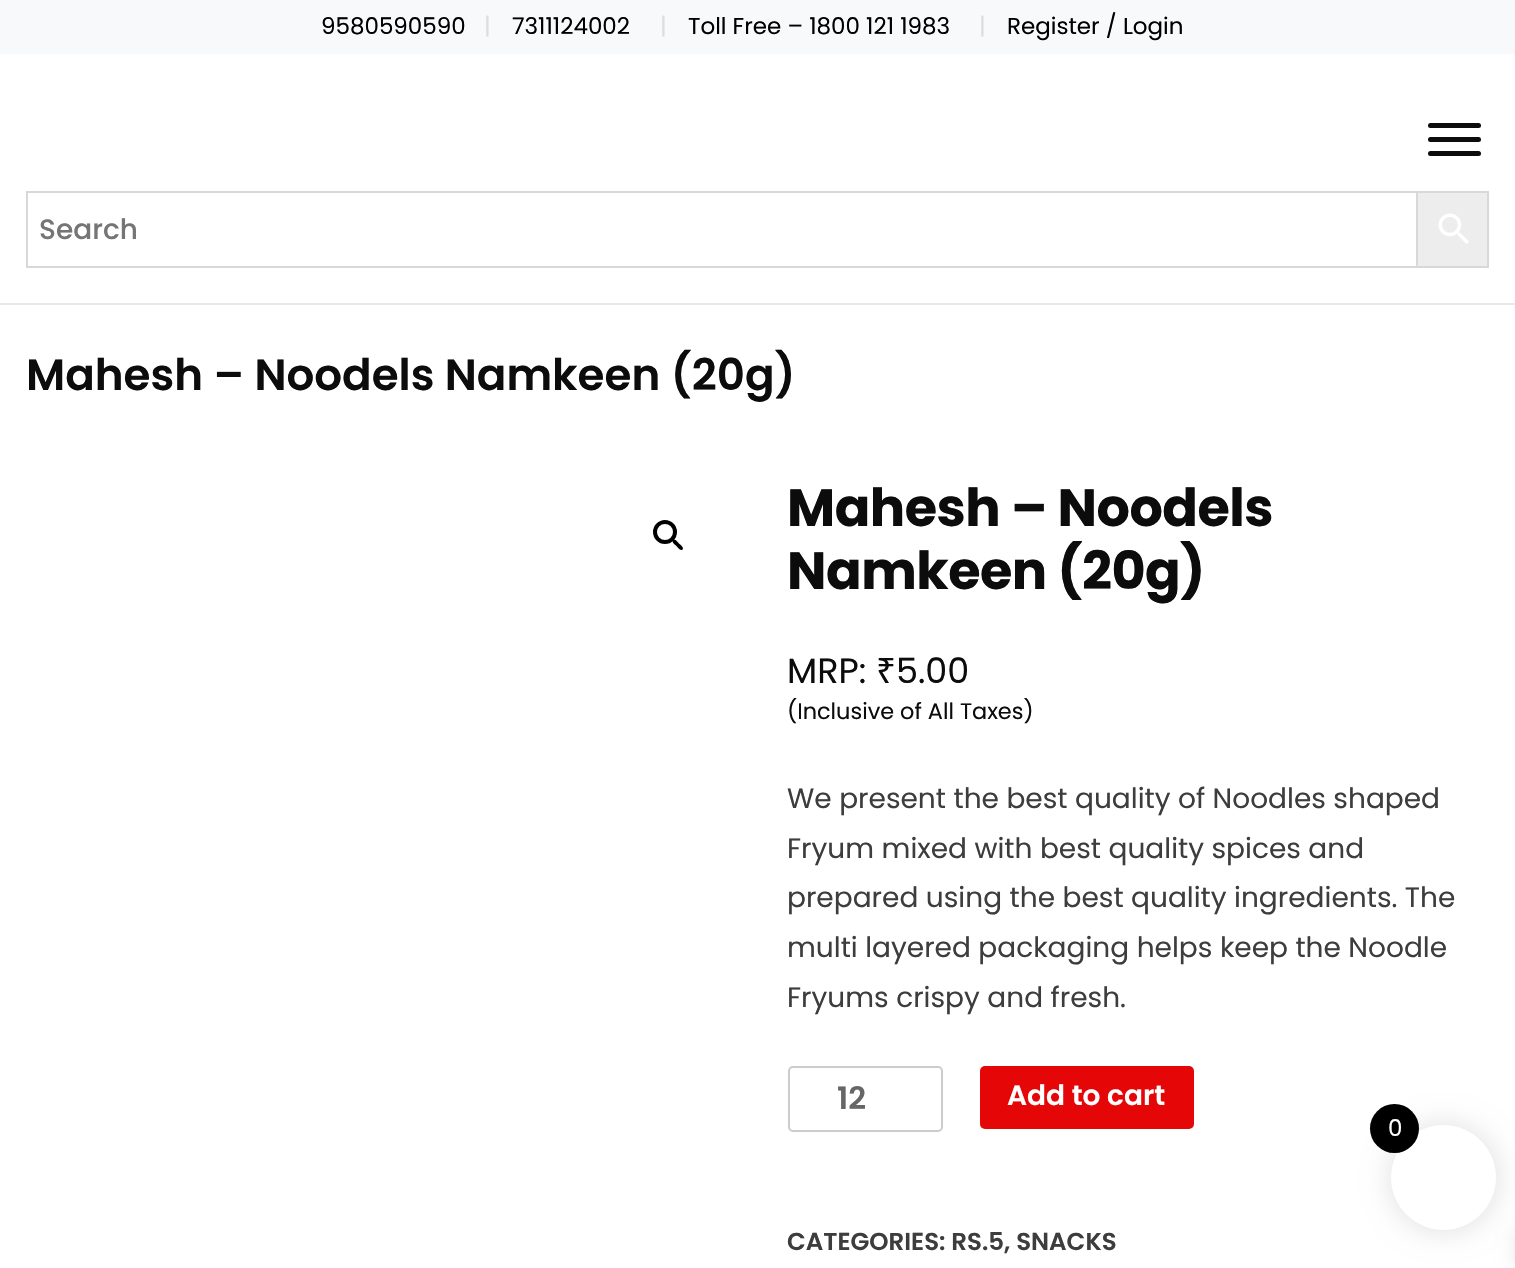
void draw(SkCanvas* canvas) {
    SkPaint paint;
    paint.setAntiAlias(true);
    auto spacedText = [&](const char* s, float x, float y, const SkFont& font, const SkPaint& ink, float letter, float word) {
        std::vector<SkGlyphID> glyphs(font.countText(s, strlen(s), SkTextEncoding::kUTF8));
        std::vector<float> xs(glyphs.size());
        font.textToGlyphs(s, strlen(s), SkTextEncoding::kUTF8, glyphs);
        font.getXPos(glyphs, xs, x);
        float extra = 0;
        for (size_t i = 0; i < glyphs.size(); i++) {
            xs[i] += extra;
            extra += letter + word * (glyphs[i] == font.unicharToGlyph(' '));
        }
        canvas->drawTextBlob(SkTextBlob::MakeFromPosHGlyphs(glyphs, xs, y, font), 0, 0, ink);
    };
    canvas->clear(0xFFFFFFFF);
    paint.setColor(0xFFE8E9E9);
    canvas->drawRect(SkRect::MakeXYWH(0, 303, 1515, 2), paint);
    paint.setColor(0xFFF8F9FA);
    canvas->drawRect(SkRect::MakeXYWH(0, 0, 1515, 54), paint);
    SkFont font1(fontMgr->matchFamilyStyle("Poppins", SkFontStyle::Normal()), 23);
    font1.setSubpixel(true);
    paint.setColor(0xFF000000);
    canvas->drawString("9580590590", 321, 34, font1, paint);
    paint.setColor(0xFFDDDDDD);
    canvas->drawString("|", 484, 34, font1, paint);
    paint.setColor(0xFF000000);
    canvas->drawString("7311124002", 512, 34, font1, paint);
    paint.setColor(0xFFDDDDDD);
    canvas->drawString("|", 660, 34, font1, paint);
    paint.setColor(0xFF000000);
    canvas->drawString("Toll Free – 1800 121 1983", 688, 34, font1, paint);
    paint.setColor(0xFFDDDDDD);
    canvas->drawString("|", 979, 34, font1, paint);
    paint.setColor(0xFF000000);
    canvas->drawString("Register / Login", 1007, 34, font1, paint);
    paint.setColor(0xFF0C0C0C);
    canvas->drawRoundRect(SkRect::MakeXYWH(1428, 123, 53, 5), 2.5f, 2.5f, paint);
    canvas->drawRoundRect(SkRect::MakeXYWH(1428, 137, 53, 5), 2.5f, 2.5f, paint);
    canvas->drawRoundRect(SkRect::MakeXYWH(1428, 151, 53, 5), 2.5f, 2.5f, paint);
    paint.setColor(0xFFEDEDED);
    canvas->drawRect(SkRect::MakeXYWH(1417, 192, 71, 75), paint);
    paint.setStyle(SkPaint::kStroke_Style);
    paint.setStrokeWidth(2);
    paint.setColor(0xFFD8D8D8);
    canvas->drawRect(SkRect::MakeXYWH(1417, 192, 71, 75), paint);
    canvas->drawRect(SkRect::MakeXYWH(27, 192, 1390, 75), paint);
    SkFont font2(fontMgr->matchFamilyStyle("Poppins", SkFontStyle(500, SkFontStyle::kNormal_Width, SkFontStyle::kUpright_Slant)), 28);
    font2.setSubpixel(true);
    paint.setStyle(SkPaint::kFill_Style);
    paint.setColor(0xFF757575);
    canvas->drawString("Search", 39, 239, font2, paint);
    canvas->drawImageRect(SkImages::DeferredFromEncodedData(SkData::MakeFromFileName("img1.png")), SkRect::MakeXYWH(1438, 213, 31, 31), SkSamplingOptions());
    SkFont font3(fontMgr->matchFamilyStyle("Poppins", SkFontStyle(600, SkFontStyle::kNormal_Width, SkFontStyle::kUpright_Slant)), 43.6f);
    font3.setSubpixel(true);
    paint.setColor(0xFF0C0C0C);
    canvas->drawString("Mahesh – Noodels Namkeen (20g)", 26, 390, font3, paint);
    paint.setStyle(SkPaint::kStroke_Style);
    paint.setStrokeWidth(4);
    paint.setColor(0xFF000000);
    canvas->drawCircle(665, 532, 10, paint);
    paint.setStyle(SkPaint::kFill_Style);
    canvas->drawPath(SkPathBuilder().moveTo(673, 540).cubicTo(675, 538, 678, 542.5f, 679, 543.5f).cubicTo(680, 544.5f, 684.5f, 547.5f, 682.5f, 549.5f).cubicTo(680.5f, 551.5f, 677.5f, 547, 676.5f, 546).cubicTo(675.5f, 545, 671, 542, 673, 540).close().detach(), paint);
    SkFont font4(fontMgr->matchFamilyStyle("Poppins", SkFontStyle::Bold()), 52.5f);
    font4.setSubpixel(true);
    paint.setColor(0xFF0C0C0C);
    spacedText("Mahesh – Noodels", 787, 526, font4, paint, -0.5f, 0);
    spacedText("Namkeen (20g)", 787, 589, font4, paint, -0.5f, 0);
    SkFont font5(fontMgr->matchFamilyStyle("Poppins", SkFontStyle::Normal()), 35);
    font5.setSubpixel(true);
    canvas->drawString("MRP:", 787, 683, font5, paint);
    SkFont font6(fontMgr->matchFamilyStyle("Noto Sans", SkFontStyle::Normal()), 35);
    font6.setSubpixel(true);
    canvas->drawString("₹", 876, 683, font6, paint);
    canvas->drawString("5.00", 896, 683, font5, paint);
    SkFont font7(fontMgr->matchFamilyStyle("Poppins", SkFontStyle::Normal()), 22.4f);
    font7.setSubpixel(true);
    canvas->drawString("(Inclusive of All Taxes)", 787, 719, font7, paint);
    SkFont font8(fontMgr->matchFamilyStyle("Poppins", SkFontStyle::Normal()), 28);
    font8.setSubpixel(true);
    paint.setColor(0xFF3D3D3D);
    canvas->drawString("We present the best quality of Noodles shaped", 787, 808, font8, paint);
    canvas->drawString("Fryum mixed with best quality spices and", 787, 858, font8, paint);
    canvas->drawString("prepared using the best quality ingredients. The", 787, 907, font8, paint);
    canvas->drawString("multi layered packaging helps keep the Noodle", 787, 957, font8, paint);
    canvas->drawString("Fryums crispy and fresh.", 787, 1007, font8, paint);
    paint.setStyle(SkPaint::kStroke_Style);
    paint.setStrokeWidth(2);
    paint.setColor(0xFFCCCCCC);
    canvas->drawRoundRect(SkRect::MakeXYWH(789, 1067, 153, 64), 4, 4, paint);
    SkFont font9(fontMgr->matchFamilyStyle("Poppins", SkFontStyle(600, SkFontStyle::kNormal_Width, SkFontStyle::kUpright_Slant)), 31);
    font9.setSubpixel(true);
    paint.setStyle(SkPaint::kFill_Style);
    paint.setColor(0xFF666666);
    canvas->drawString("12", 837, 1109, font9, paint);
    paint.setColor(0xFFE50707);
    canvas->drawRoundRect(SkRect::MakeXYWH(980, 1066, 214, 63), 5, 5, paint);
    SkFont font10(fontMgr->matchFamilyStyle("Poppins", SkFontStyle(600, SkFontStyle::kNormal_Width, SkFontStyle::kUpright_Slant)), 28);
    font10.setSubpixel(true);
    paint.setColor(0xFFFFFFFF);
    canvas->drawString("Add to cart", 1007, 1105, font10, paint);
    SkFont font11(fontMgr->matchFamilyStyle("Poppins", SkFontStyle(600, SkFontStyle::kNormal_Width, SkFontStyle::kUpright_Slant)), 24.5f);
    font11.setSubpixel(true);
    paint.setColor(0xFF3D3D3D);
    canvas->drawString("CATEGORIES: RS.5, SNACKS", 787, 1250, font11, paint);
    paint.setColor(0x1A000000);
    paint.setMaskFilter(SkMaskFilter::MakeBlur(kNormal_SkBlurStyle, 13));
    canvas->drawRoundRect(SkRect::MakeXYWH(1388, 1122, 112, 112), 56, 56, paint);
    paint.setMaskFilter(nullptr);
    paint.setMaskFilter(SkMaskFilter::MakeBlur(kNormal_SkBlurStyle, 9));
    canvas->drawRect(SkRect::MakeXYWH(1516, 1232, 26, 35), paint);
    paint.setMaskFilter(nullptr);
    paint.setColor(0xFFFFFFFF);
    canvas->drawCircle(1443.5f, 1177.5f, 52.5f, paint);
    paint.setColor(0xFF000000);
    canvas->drawCircle(1394.5f, 1128.5f, 24.5f, paint);
    paint.setColor(0xFFFFFFFF);
    canvas->drawString("0", 1388, 1136, font1, paint);
}
